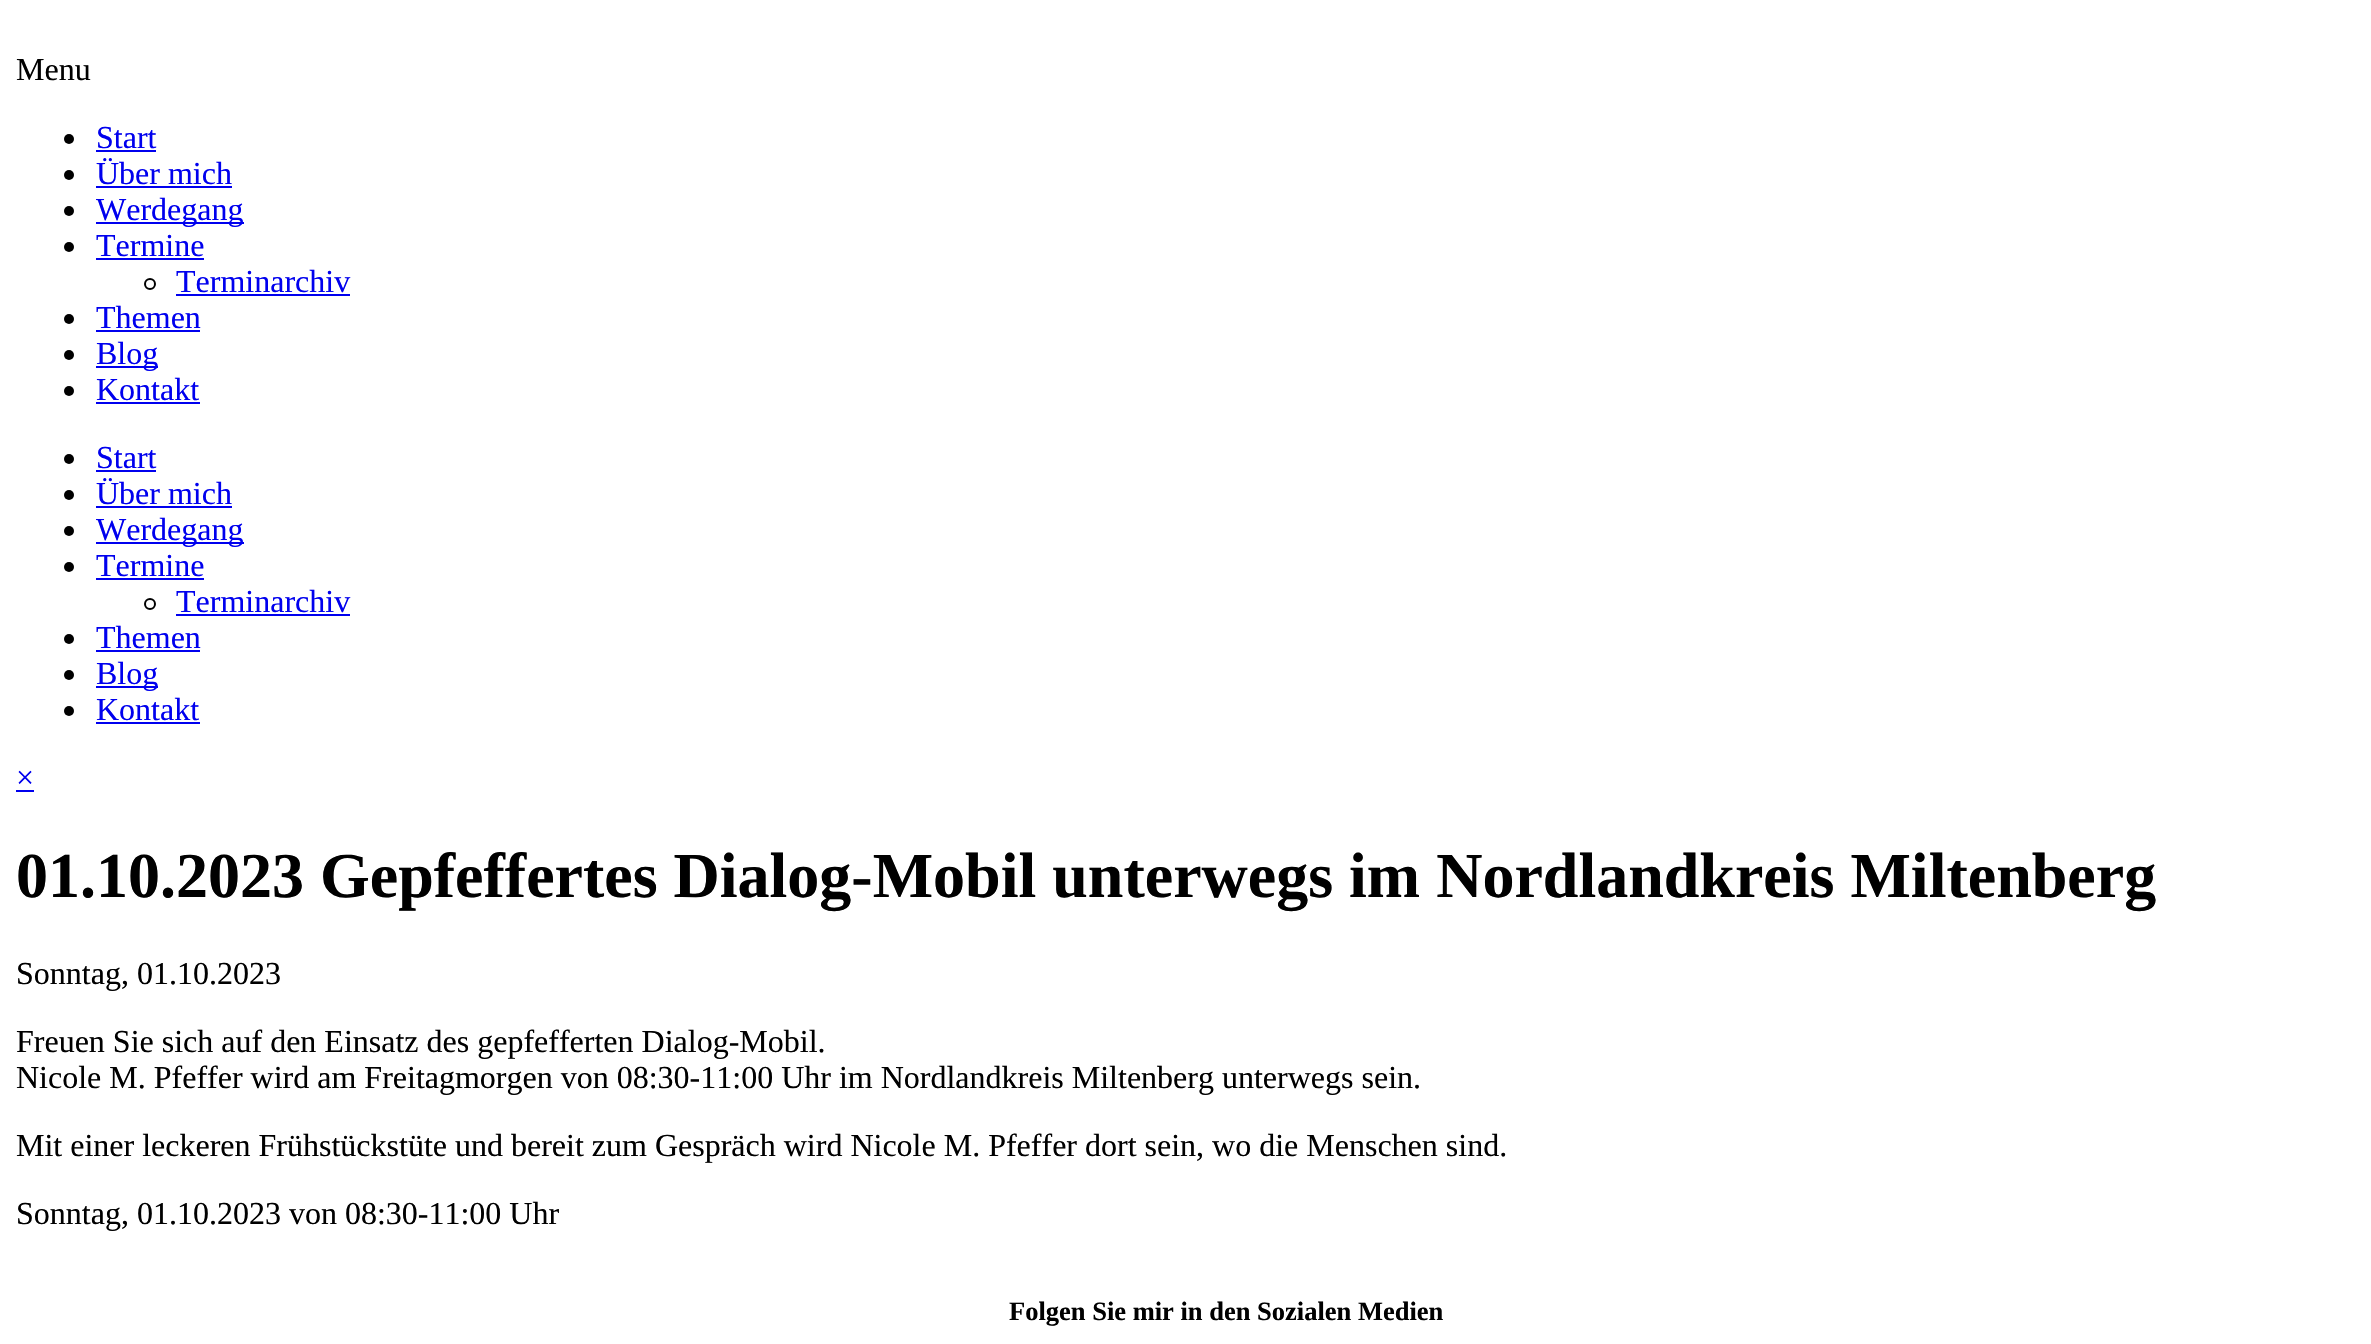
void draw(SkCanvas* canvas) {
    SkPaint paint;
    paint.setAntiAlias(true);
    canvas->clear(0xFFFFFFFF);
    SkFont font1(fontMgr->matchFamilyStyle("Liberation Serif", SkFontStyle::Normal()), 32);
    font1.setSubpixel(true);
    paint.setColor(0xFF000000);
    canvas->drawString("Menu", 16, 80, font1, paint);
    canvas->drawCircle(69, 139, 5, paint);
    paint.setColor(0xFF0000EE);
    canvas->drawString("Start", 96, 148, font1, paint);
    canvas->drawRect(SkRect::MakeXYWH(96, 150, 60, 2), paint);
    paint.setColor(0xFF000000);
    canvas->drawCircle(69, 175, 5, paint);
    paint.setColor(0xFF0000EE);
    canvas->drawString("Über mich", 96, 184, font1, paint);
    canvas->drawRect(SkRect::MakeXYWH(96, 186, 136, 2), paint);
    paint.setColor(0xFF000000);
    canvas->drawCircle(69, 211, 5, paint);
    paint.setColor(0xFF0000EE);
    canvas->drawRect(SkRect::MakeXYWH(96, 222, 148, 2), paint);
    canvas->drawString("Werdegang", 96, 220, font1, paint);
    paint.setColor(0xFF000000);
    canvas->drawCircle(69, 247, 5, paint);
    paint.setColor(0xFF0000EE);
    canvas->drawString("Termine", 96, 256, font1, paint);
    canvas->drawRect(SkRect::MakeXYWH(96, 258, 108, 2), paint);
    paint.setStyle(SkPaint::kStroke_Style);
    paint.setStrokeWidth(2);
    paint.setColor(0xFF000000);
    canvas->drawCircle(150, 284, 5, paint);
    paint.setStyle(SkPaint::kFill_Style);
    paint.setColor(0xFF0000EE);
    canvas->drawString("Terminarchiv", 176, 292, font1, paint);
    canvas->drawRect(SkRect::MakeXYWH(176, 294, 174, 2), paint);
    paint.setColor(0xFF000000);
    canvas->drawCircle(69, 319, 5, paint);
    paint.setColor(0xFF0000EE);
    canvas->drawString("Themen", 96, 328, font1, paint);
    canvas->drawRect(SkRect::MakeXYWH(96, 330, 104, 2), paint);
    paint.setColor(0xFF000000);
    canvas->drawCircle(69, 355, 5, paint);
    paint.setColor(0xFF0000EE);
    canvas->drawRect(SkRect::MakeXYWH(96, 366, 62, 2), paint);
    canvas->drawString("Blog", 96, 364, font1, paint);
    paint.setColor(0xFF000000);
    canvas->drawCircle(69, 391, 5, paint);
    paint.setColor(0xFF0000EE);
    canvas->drawString("Kontakt", 96, 400, font1, paint);
    canvas->drawRect(SkRect::MakeXYWH(96, 402, 104, 2), paint);
    paint.setColor(0xFF000000);
    canvas->drawCircle(69, 459, 5, paint);
    paint.setColor(0xFF0000EE);
    canvas->drawString("Start", 96, 468, font1, paint);
    canvas->drawRect(SkRect::MakeXYWH(96, 470, 60, 2), paint);
    paint.setColor(0xFF000000);
    canvas->drawCircle(69, 495, 5, paint);
    paint.setColor(0xFF0000EE);
    canvas->drawString("Über mich", 96, 504, font1, paint);
    canvas->drawRect(SkRect::MakeXYWH(96, 506, 136, 2), paint);
    paint.setColor(0xFF000000);
    canvas->drawCircle(69, 531, 5, paint);
    paint.setColor(0xFF0000EE);
    canvas->drawRect(SkRect::MakeXYWH(96, 542, 148, 2), paint);
    canvas->drawString("Werdegang", 96, 540, font1, paint);
    paint.setColor(0xFF000000);
    canvas->drawCircle(69, 567, 5, paint);
    paint.setColor(0xFF0000EE);
    canvas->drawString("Termine", 96, 576, font1, paint);
    canvas->drawRect(SkRect::MakeXYWH(96, 578, 108, 2), paint);
    paint.setStyle(SkPaint::kStroke_Style);
    paint.setColor(0xFF000000);
    canvas->drawCircle(150, 604, 5, paint);
    paint.setStyle(SkPaint::kFill_Style);
    paint.setColor(0xFF0000EE);
    canvas->drawString("Terminarchiv", 176, 612, font1, paint);
    canvas->drawRect(SkRect::MakeXYWH(176, 614, 174, 2), paint);
    paint.setColor(0xFF000000);
    canvas->drawCircle(69, 639, 5, paint);
    paint.setColor(0xFF0000EE);
    canvas->drawString("Themen", 96, 648, font1, paint);
    canvas->drawRect(SkRect::MakeXYWH(96, 650, 104, 2), paint);
    paint.setColor(0xFF000000);
    canvas->drawCircle(69, 675, 5, paint);
    paint.setColor(0xFF0000EE);
    canvas->drawRect(SkRect::MakeXYWH(96, 686, 62, 2), paint);
    canvas->drawString("Blog", 96, 684, font1, paint);
    paint.setColor(0xFF000000);
    canvas->drawCircle(69, 711, 5, paint);
    paint.setColor(0xFF0000EE);
    canvas->drawString("Kontakt", 96, 720, font1, paint);
    canvas->drawRect(SkRect::MakeXYWH(96, 722, 104, 2), paint);
    canvas->drawString("×", 16, 788, font1, paint);
    canvas->drawRect(SkRect::MakeXYWH(16, 790, 18, 2), paint);
    SkFont font2(fontMgr->matchFamilyStyle("Liberation Serif", SkFontStyle::Bold()), 64);
    font2.setSubpixel(true);
    paint.setColor(0xFF000000);
    canvas->drawString("01.10.2023 Gepfeffertes Dialog-Mobil unterwegs im Nordlandkreis Miltenberg", 16, 897, font2, paint);
    canvas->drawString("Sonntag, 01.10.2023", 16, 984, font1, paint);
    canvas->drawString("Freuen Sie sich auf den Einsatz des gepfefferten Dialog-Mobil.", 16, 1052, font1, paint);
    canvas->drawString("Nicole M. Pfeffer wird am Freitagmorgen von 08:30-11:00 Uhr im Nordlandkreis Miltenberg unterwegs sein.", 16, 1088, font1, paint);
    canvas->drawString("Mit einer leckeren Frühstückstüte und bereit zum Gespräch wird Nicole M. Pfeffer dort sein, wo die Menschen sind.", 16, 1156, font1, paint);
    canvas->drawString("Sonntag, 01.10.2023 von 08:30-11:00 Uhr", 16, 1224, font1, paint);
    SkFont font3(fontMgr->matchFamilyStyle("Liberation Serif", SkFontStyle::Bold()), 26.5f);
    font3.setSubpixel(true);
    canvas->drawString("Folgen Sie mir in den Sozialen Medien", 1009, 1320, font3, paint);
}
